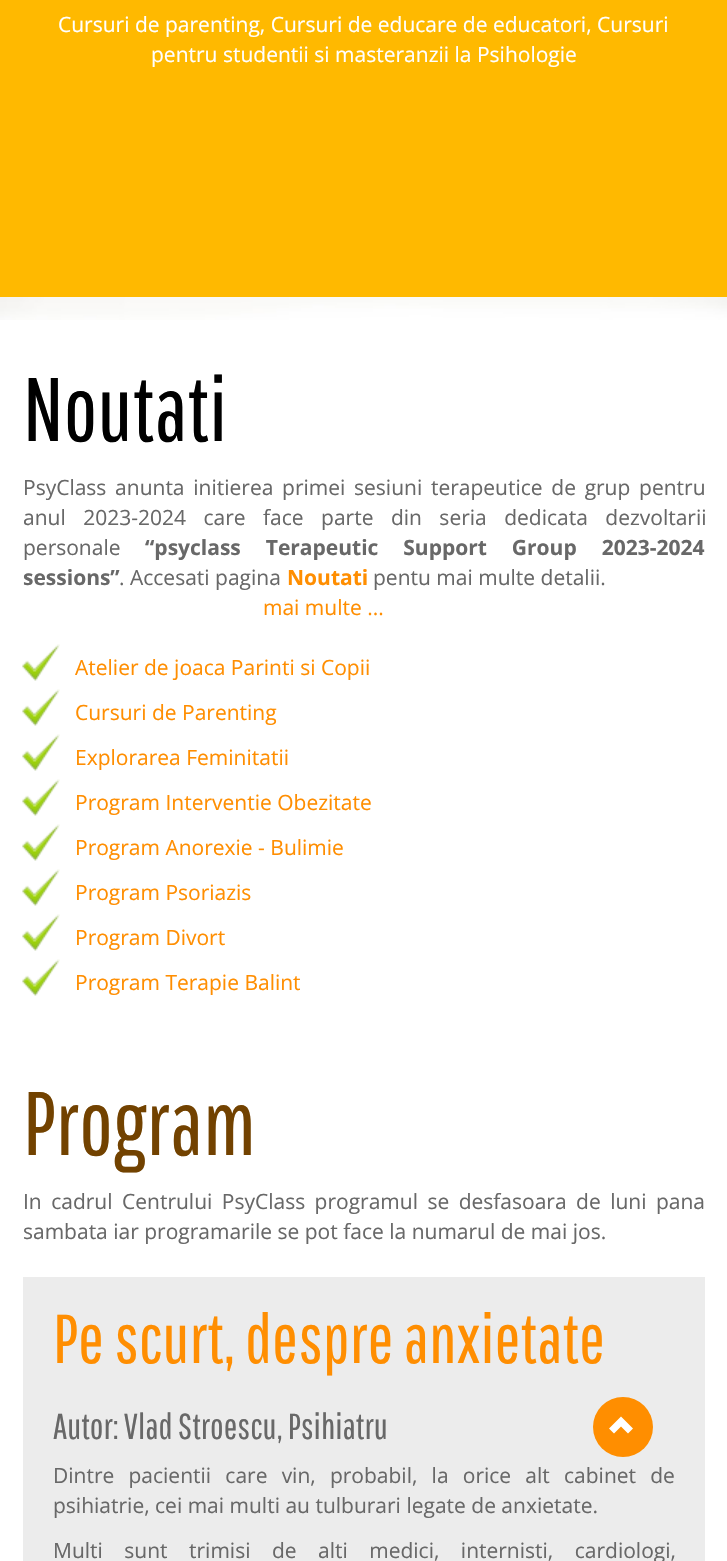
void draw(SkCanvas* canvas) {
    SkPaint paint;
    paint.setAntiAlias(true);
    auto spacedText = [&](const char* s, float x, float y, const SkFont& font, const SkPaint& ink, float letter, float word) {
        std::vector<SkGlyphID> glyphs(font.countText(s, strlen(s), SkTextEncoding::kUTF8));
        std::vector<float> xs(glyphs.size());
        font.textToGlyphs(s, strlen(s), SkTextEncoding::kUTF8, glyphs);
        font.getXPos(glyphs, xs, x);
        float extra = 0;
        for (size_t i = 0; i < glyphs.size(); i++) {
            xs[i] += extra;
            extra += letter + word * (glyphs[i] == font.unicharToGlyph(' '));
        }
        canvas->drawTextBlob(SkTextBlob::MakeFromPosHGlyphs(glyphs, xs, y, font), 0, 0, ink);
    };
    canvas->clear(0xFFFFFFFF);
    paint.setColor(0xFFFFB900);
    canvas->drawRect(SkRect::MakeXYWH(0, 0, 727, 297), paint);
    SkFont font1(fontMgr->matchFamilyStyle("Open Sans", SkFontStyle::Normal()), 21);
    font1.setSubpixel(true);
    paint.setColor(0xFFFFFFFF);
    canvas->drawString("Cursuri de parenting, Cursuri de educare de educatori, Cursuri", 58, 32, font1, paint);
    canvas->drawString("pentru studentii si masteranzii la Psihologie", 151, 62, font1, paint);
    canvas->drawImageRect(SkImages::DeferredFromEncodedData(SkData::MakeFromFileName("img1.png")), SkRect::MakeXYWH(0, 297, 727, 23), SkSamplingOptions());
    SkFont font2(fontMgr->matchFamilyStyle("Pathway Gothic One", SkFontStyle::Normal()), 90);
    font2.setSubpixel(true);
    paint.setColor(0xFF000000);
    canvas->drawString("Noutati", 23, 441, font2, paint);
    paint.setColor(0xFF686868);
    spacedText("PsyClass anunta initierea primei sesiuni terapeutice de grup pentru", 23, 495, font1, paint, 0, 3.25f);
    spacedText("anul 2023-2024 care face parte din seria dedicata dezvoltarii", 23, 525, font1, paint, 0, 12);
    canvas->drawString("personale", 23, 555, font1, paint);
    SkFont font3(fontMgr->matchFamilyStyle("Open Sans", SkFontStyle::Bold()), 21);
    font3.setSubpixel(true);
    spacedText("“psyclass Terapeutic Support Group 2023-2024", 145, 555, font3, paint, 0, 19.5f);
    canvas->drawString("sessions”", 23, 585, font3, paint);
    canvas->drawString(". Accesati pagina", 119, 585, font1, paint);
    paint.setColor(0xFFFF8E01);
    canvas->drawString("Noutati", 287, 585, font3, paint);
    paint.setColor(0xFF686868);
    canvas->drawString("pentu mai multe detalii.", 373, 585, font1, paint);
    paint.setColor(0xFFFF8E01);
    canvas->drawString("mai multe ...", 263, 615, font1, paint);
    canvas->drawImageRect(SkImages::DeferredFromEncodedData(SkData::MakeFromFileName("img2.png")), SkRect::MakeXYWH(22, 644, 38, 37), SkSamplingOptions());
    canvas->drawString("Atelier de joaca Parinti si Copii", 75, 675, font1, paint);
    canvas->drawImageRect(SkImages::DeferredFromEncodedData(SkData::MakeFromFileName("img2.png")), SkRect::MakeXYWH(22, 689, 38, 37), SkSamplingOptions());
    canvas->drawString("Cursuri de Parenting", 75, 720, font1, paint);
    canvas->drawImageRect(SkImages::DeferredFromEncodedData(SkData::MakeFromFileName("img2.png")), SkRect::MakeXYWH(22, 734, 38, 37), SkSamplingOptions());
    canvas->drawString("Explorarea Feminitatii", 75, 765, font1, paint);
    canvas->drawImageRect(SkImages::DeferredFromEncodedData(SkData::MakeFromFileName("img2.png")), SkRect::MakeXYWH(22, 779, 38, 37), SkSamplingOptions());
    canvas->drawString("Program Interventie Obezitate", 75, 810, font1, paint);
    canvas->drawImageRect(SkImages::DeferredFromEncodedData(SkData::MakeFromFileName("img2.png")), SkRect::MakeXYWH(22, 824, 38, 37), SkSamplingOptions());
    canvas->drawString("Program Anorexie - Bulimie", 75, 855, font1, paint);
    canvas->drawImageRect(SkImages::DeferredFromEncodedData(SkData::MakeFromFileName("img2.png")), SkRect::MakeXYWH(22, 869, 38, 37), SkSamplingOptions());
    canvas->drawString("Program Psoriazis", 75, 900, font1, paint);
    canvas->drawImageRect(SkImages::DeferredFromEncodedData(SkData::MakeFromFileName("img2.png")), SkRect::MakeXYWH(22, 914, 38, 37), SkSamplingOptions());
    canvas->drawString("Program Divort", 75, 945, font1, paint);
    canvas->drawImageRect(SkImages::DeferredFromEncodedData(SkData::MakeFromFileName("img2.png")), SkRect::MakeXYWH(22, 959, 38, 37), SkSamplingOptions());
    canvas->drawString("Program Terapie Balint", 75, 990, font1, paint);
    paint.setColor(0xFF724200);
    canvas->drawString("Program", 23, 1155, font2, paint);
    paint.setColor(0xFF686868);
    spacedText("In cadrul Centrului PsyClass programul se desfasoara de luni pana", 23, 1209, font1, paint, 0, 4);
    canvas->drawString("sambata iar programarile se pot face la numarul de mai jos.", 23, 1239, font1, paint);
    paint.setColor(0xFFECECEC);
    canvas->drawRect(SkRect::MakeXYWH(23, 1277, 682, 284), paint);
    SkFont font4(fontMgr->matchFamilyStyle("Pathway Gothic One", SkFontStyle::Normal()), 69);
    font4.setSubpixel(true);
    paint.setColor(0xFFFF8E01);
    canvas->drawString("Pe scurt, despre anxietate", 53, 1363, font4, paint);
    SkFont font5(fontMgr->matchFamilyStyle("Pathway Gothic One", SkFontStyle::Normal()), 36);
    font5.setSubpixel(true);
    paint.setColor(0xFF686868);
    canvas->drawString("Autor: Vlad Stroescu, Psihiatru", 53, 1439, font5, paint);
    spacedText("Dintre pacientii care vin, probabil, la orice alt cabinet de", 53, 1483, font1, paint, 0, 8.75f);
    canvas->drawString("psihiatrie, cei mai multi au tulburari legate de anxietate.", 53, 1513, font1, paint);
    spacedText("Multi sunt trimisi de alti medici, internisti, cardiologi,", 53, 1558, font1, paint, 0, 16);
    paint.setColor(0xFFFF8E00);
    canvas->drawCircle(623, 1427, 30, paint);
    paint.setColor(0xFFFFFFFF);
    canvas->drawPath(SkPathBuilder().moveTo(621, 1416.5f).lineTo(609, 1428.5f).lineTo(614, 1433.5f).lineTo(621, 1426.5f).lineTo(628, 1433.5f).lineTo(633, 1428.5f).close().detach(), paint);
}
